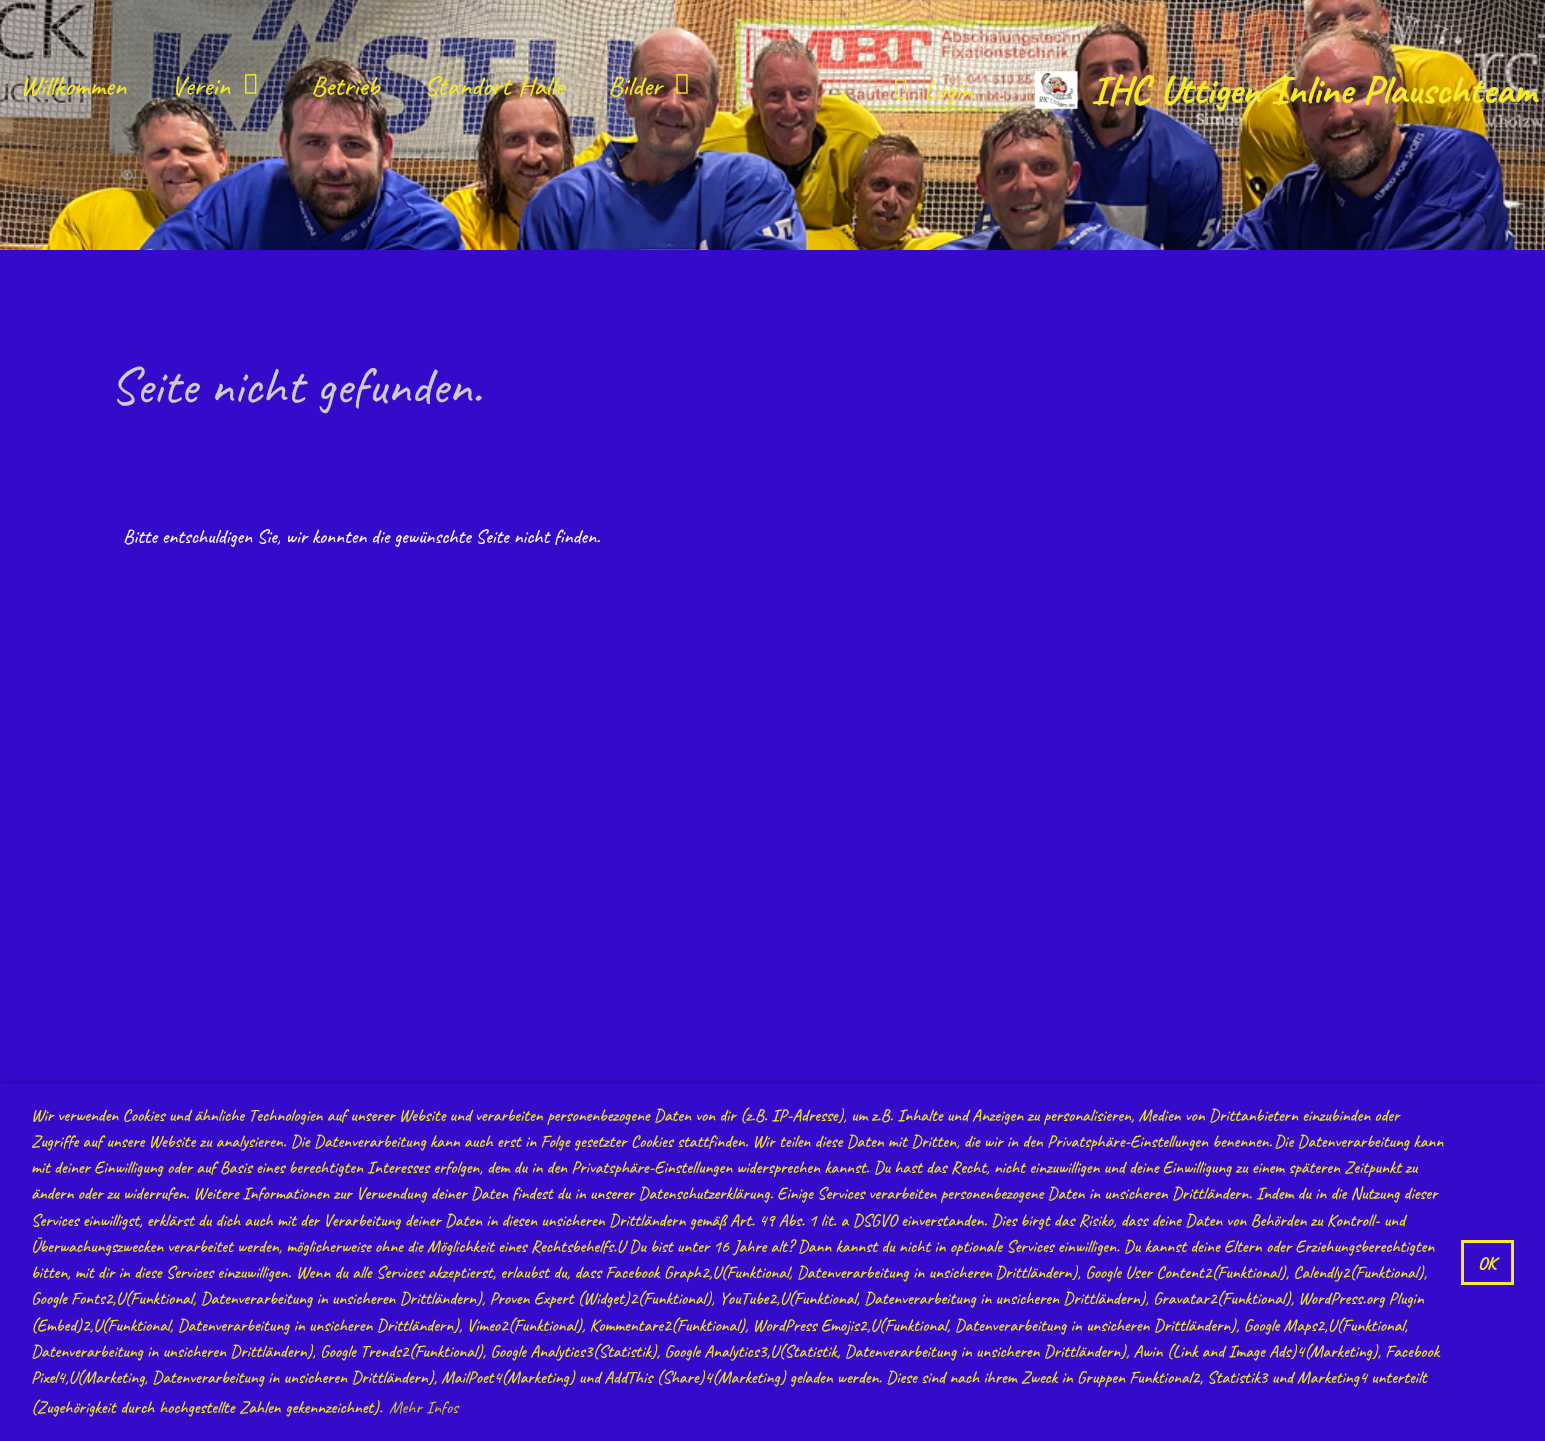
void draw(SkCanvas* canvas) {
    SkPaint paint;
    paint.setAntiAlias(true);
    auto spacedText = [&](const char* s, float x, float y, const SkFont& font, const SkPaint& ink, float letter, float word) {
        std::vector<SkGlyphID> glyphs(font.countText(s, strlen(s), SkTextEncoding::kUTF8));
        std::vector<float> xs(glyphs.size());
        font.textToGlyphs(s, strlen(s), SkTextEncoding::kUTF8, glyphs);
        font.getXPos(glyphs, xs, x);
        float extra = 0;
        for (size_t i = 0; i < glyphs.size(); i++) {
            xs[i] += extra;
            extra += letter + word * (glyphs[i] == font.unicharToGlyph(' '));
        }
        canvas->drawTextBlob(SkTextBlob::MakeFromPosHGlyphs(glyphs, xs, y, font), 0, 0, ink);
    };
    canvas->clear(0xFF350ACA);
    canvas->drawImageRect(SkImages::DeferredFromEncodedData(SkData::MakeFromFileName("img5.png")), SkRect::MakeXYWH(0, 0, 1545, 250), SkSamplingOptions());
    SkFont font1(fontMgr->matchFamilyStyle("Caveat", SkFontStyle::Normal()), 27.5f);
    font1.setSubpixel(true);
    paint.setColor(0xFFF7EA29);
    canvas->drawString("Willkommen", 20, 95, font1, paint);
    canvas->drawString("Verein", 171, 95, font1, paint);
    canvas->drawImageRect(SkImages::DeferredFromEncodedData(SkData::MakeFromFileName("img1.png")), SkRect::MakeXYWH(245, 74, 12, 20), SkSamplingOptions());
    canvas->drawString("Betrieb", 311, 95, font1, paint);
    spacedText("Standort Halle", 424, 95, font1, paint, 0, 1);
    canvas->drawString("Bilder", 608, 95, font1, paint);
    canvas->drawImageRect(SkImages::DeferredFromEncodedData(SkData::MakeFromFileName("img2.png")), SkRect::MakeXYWH(676, 74, 12, 20), SkSamplingOptions());
    canvas->drawImageRect(SkImages::DeferredFromEncodedData(SkData::MakeFromFileName("img3.png")), SkRect::MakeXYWH(895, 79, 12, 20), SkSamplingOptions());
    canvas->drawString("Login", 924, 99, font1, paint);
    canvas->drawImageRect(SkImages::DeferredFromEncodedData(SkData::MakeFromFileName("img4.png")), SkRect::MakeXYWH(1035, 71, 43, 39), SkSamplingOptions());
    SkFont font2(fontMgr->matchFamilyStyle("Caveat", SkFontStyle::Bold()), 40);
    font2.setSubpixel(true);
    spacedText("IHC Uttigen Inline Plauschteam", 1091, 103, font2, paint, 0, 1);
    SkFont font3(fontMgr->matchFamilyStyle("Caveat", SkFontStyle::Normal()), 52.5f);
    font3.setSubpixel(true);
    paint.setColor(0xFFCCCCCC);
    canvas->drawString("Seite nicht gefunden.", 110, 403, font3, paint);
    SkFont font4(fontMgr->matchFamilyStyle("Caveat", SkFontStyle::Normal()), 20);
    font4.setSubpixel(true);
    paint.setColor(0xFFFFFFFF);
    canvas->drawString("Bitte entschuldigen Sie, wir konnten die gewünschte Seite nicht finden.", 123, 543, font4, paint);
    paint.setColor(0x4D000000);
    paint.setMaskFilter(SkMaskFilter::MakeBlur(kNormal_SkBlurStyle, 3));
    canvas->drawRect(SkRect::MakeXYWH(0, 1084, 1545, 357), paint);
    paint.setMaskFilter(nullptr);
    paint.setColor(0xFF350ACA);
    canvas->drawRect(SkRect::MakeXYWH(0, 1084, 1545, 357), paint);
    SkFont font5(fontMgr->matchFamilyStyle("Caveat", SkFontStyle::Normal()), 17.5f);
    font5.setSubpixel(true);
    paint.setColor(0xFFF7EA29);
    canvas->drawString("Wir verwenden Cookies und ähnliche Technologien auf unserer Website und verarbeiten personenbezogene Daten von dir (z.B. IP-Adresse), um z.B. Inhalte und Anzeigen zu personalisieren, Medien von Drittanbietern einzubinden oder", 31, 1121, font5, paint);
    spacedText("Zugriffe auf unsere Website zu analysieren. Die Datenverarbeitung kann auch erst in Folge gesetzter Cookies stattfinden. Wir teilen diese Daten mit Dritten, die wir in den Privatsphäre-Einstellungen benennen.", 31, 1147, font5, paint, 0, 0.1f);
    canvas->drawString("Die Datenverarbeitung kann", 1274, 1147, font5, paint);
    canvas->drawString("mit deiner Einwilligung oder auf Basis eines berechtigten Interesses erfolgen, dem du in den Privatsphäre-Einstellungen widersprechen kannst. Du hast das Recht, nicht einzuwilligen und deine Einwilligung zu einem späteren Zeitpunkt zu", 31, 1173, font5, paint);
    canvas->drawString("ändern oder zu widerrufen. Weitere Informationen zur Verwendung deiner Daten findest du in unserer Datenschutzerklärung. Einige Services verarbeiten personenbezogene Daten in unsicheren Drittländern. Indem du in die Nutzung dieser", 31, 1199, font5, paint);
    canvas->drawString("Services einwilligst, erklärst du dich auch mit der Verarbeitung deiner Daten in diesen unsicheren Drittländern gemäß Art. 49 Abs. 1 lit. a DSGVO einverstanden. Dies birgt das Risiko, dass deine Daten von Behörden zu Kontroll- und", 31, 1226, font5, paint);
    canvas->drawString("Überwachungszwecken verarbeitet werden, möglicherweise ohne die Möglichkeit eines Rechtsbehelfs.U Du bist unter 16 Jahre alt? Dann kannst du nicht in optionale Services einwilligen. Du kannst deine Eltern oder Erziehungsberechtigten", 31, 1252, font5, paint);
    canvas->drawString("bitten, mit dir in diese Services einzuwilligen.", 31, 1278, font5, paint);
    spacedText("Wenn du alle Services akzeptierst, erlaubst du, dass Facebook Graph2,U(Funktional, Datenverarbeitung in unsicheren", 296, 1278, font5, paint, 0, 0.2f);
    spacedText("Drittländern), Google User Content2(Funktional), Calendly2(Funktional),", 995, 1278, font5, paint, 0, 0.2f);
    canvas->drawString("Google Fonts2,U(Funktional, Datenverarbeitung in unsicheren Drittländern), Proven Expert (Widget)2(Funktional), YouTube2,U(Funktional, Datenverarbeitung in unsicheren Drittländern), Gravatar2(Funktional), WordPress.org Plugin", 31, 1304, font5, paint);
    canvas->drawString("(Embed)2,U(Funktional, Datenverarbeitung in unsicheren Drittländern), Vimeo2(Funktional), Kommentare2(Funktional), WordPress Emojis2,U(Funktional, Datenverarbeitung in unsicheren Drittländern), Google Maps2,U(Funktional,", 31, 1331, font5, paint);
    canvas->drawString("Datenverarbeitung in unsicheren Drittländern), Google Trends2(Funktional), Google Analytics3(Statistik), Google Analytics3,U(Statistik, Datenverarbeitung in unsicheren Drittländern), Awin (Link and Image Ads)4(Marketing), Facebook", 31, 1357, font5, paint);
    canvas->drawString("Pixel4,U(Marketing, Datenverarbeitung in unsicheren Drittländern), MailPoet4(Marketing) und AddThis (Share)4(Marketing) geladen werden. Diese sind nach ihrem Zweck in Gruppen Funktional2, Statistik3 und Marketing4 unterteilt", 31, 1383, font5, paint);
    spacedText("(Zugehörigkeit durch hochgestellte Zahlen gekennzeichnet).", 31, 1413, font5, paint, 0, 0.5f);
    paint.setColor(0xFFD0BD49);
    canvas->drawString("Mehr Infos", 389, 1413, font5, paint);
    paint.setStyle(SkPaint::kStroke_Style);
    paint.setStrokeWidth(3);
    paint.setColor(0xFFF7EA29);
    canvas->drawRect(SkRect::MakeXYWH(1462.5f, 1241.5f, 50, 42), paint);
    SkFont font6(fontMgr->matchFamilyStyle("Caveat", SkFontStyle::Bold()), 18);
    font6.setSubpixel(true);
    paint.setStyle(SkPaint::kFill_Style);
    canvas->drawString("OK", 1478, 1269, font6, paint);
}
